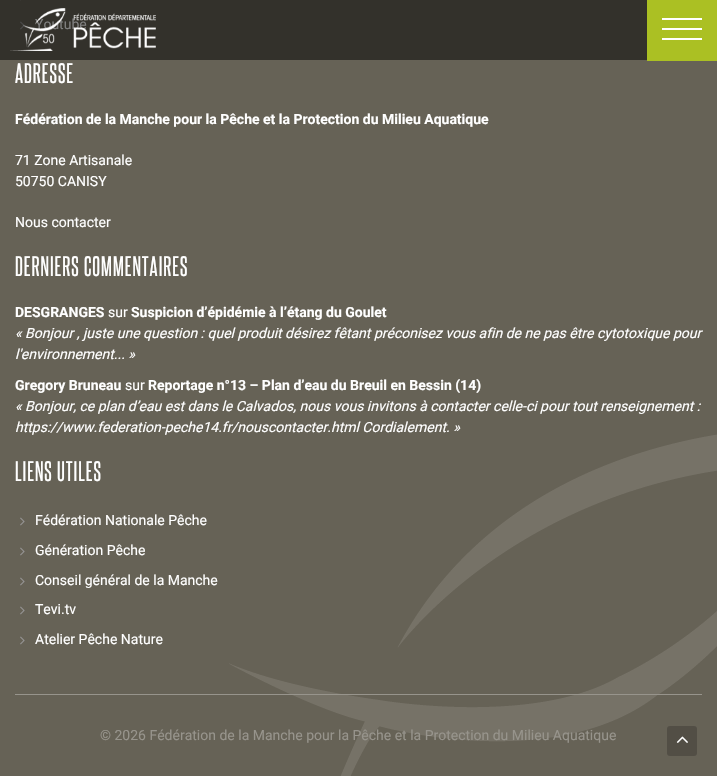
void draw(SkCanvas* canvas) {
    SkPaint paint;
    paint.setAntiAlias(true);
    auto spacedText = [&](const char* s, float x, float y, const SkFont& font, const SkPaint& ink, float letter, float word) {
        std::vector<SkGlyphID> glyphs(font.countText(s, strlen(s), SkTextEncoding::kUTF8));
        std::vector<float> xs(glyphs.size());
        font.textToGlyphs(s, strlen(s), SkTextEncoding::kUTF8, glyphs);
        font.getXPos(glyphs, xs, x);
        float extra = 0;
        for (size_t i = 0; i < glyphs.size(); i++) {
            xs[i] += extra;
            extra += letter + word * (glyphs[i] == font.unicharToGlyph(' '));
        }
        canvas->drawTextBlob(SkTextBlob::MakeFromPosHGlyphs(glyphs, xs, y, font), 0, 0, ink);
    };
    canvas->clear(0xFF666256);
    paint.setColor(0xFF33312B);
    canvas->drawRect(SkRect::MakeXYWH(0, 0, 647, 60), paint);
    canvas->drawImageRect(SkImages::DeferredFromEncodedData(SkData::MakeFromFileName("img3.png")), SkRect::MakeXYWH(20, 21, 5, 9), SkSamplingOptions());
    SkFont font1(fontMgr->matchFamilyStyle("Roboto", SkFontStyle::Normal()), 14);
    font1.setSubpixel(true);
    paint.setColor(0xFF808080);
    canvas->drawString("Youtube", 35, 29, font1, paint);
    canvas->drawImageRect(SkImages::DeferredFromEncodedData(SkData::MakeFromFileName("img1.png")), SkRect::MakeXYWH(10, 8, 146, 43), SkSamplingOptions());
    paint.setColor(0xFFABC023);
    canvas->drawRect(SkRect::MakeXYWH(647, 0, 70, 61), paint);
    paint.setColor(0xFFFFFFFF);
    canvas->drawRect(SkRect::MakeXYWH(662, 28, 40, 2), paint);
    canvas->drawRect(SkRect::MakeXYWH(662, 18, 40, 2), paint);
    canvas->drawRect(SkRect::MakeXYWH(662, 38, 40, 2), paint);
    canvas->drawImageRect(SkImages::DeferredFromEncodedData(SkData::MakeFromFileName("img2.png")), SkRect::MakeXYWH(229, 434, 488, 342), SkSamplingOptions());
    paint.setColor(0xFF383631);
    canvas->drawRect(SkRect::MakeXYWH(20, 0, 1, 1), paint);
    SkFont font2(fontMgr->matchFamilyStyle("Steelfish", SkFontStyle::Normal()), 24);
    font2.setSubpixel(true);
    paint.setColor(0xFFFFFFFF);
    spacedText("ADRESSE", 15, 83, font2, paint, 1, 0);
    SkFont font3(fontMgr->matchFamilyStyle("Roboto", SkFontStyle::Bold()), 14);
    font3.setSubpixel(true);
    canvas->drawString("Fédération de la Manche pour la Pêche et la Protection du Milieu Aquatique", 15, 124, font3, paint);
    canvas->drawString("71 Zone Artisanale", 15, 165, font1, paint);
    canvas->drawString("50750 CANISY", 15, 186, font1, paint);
    canvas->drawString("Nous contacter", 15, 227, font1, paint);
    spacedText("DERNIERS COMMENTAIRES", 15, 276, font2, paint, 1, 0);
    canvas->drawString("DESGRANGES", 15, 317, font3, paint);
    canvas->drawString("sur", 108, 317, font1, paint);
    canvas->drawString("Suspicion d’épidémie à l’étang du Goulet", 131, 317, font3, paint);
    SkFont font4(fontMgr->matchFamilyStyle("Roboto", SkFontStyle::Italic()), 14);
    font4.setSubpixel(true);
    canvas->drawString("« Bonjour , juste une question : quel produit désirez fêtant préconisez vous afin de ne pas être cytotoxique pour", 15, 338, font4, paint);
    canvas->drawString("l'environnement... »", 15, 359, font4, paint);
    canvas->drawString("Gregory Bruneau", 15, 390, font3, paint);
    canvas->drawString("sur", 125, 390, font1, paint);
    canvas->drawString("Reportage n°13 – Plan d’eau du Breuil en Bessin (14)", 148, 390, font3, paint);
    canvas->drawString("« Bonjour, ce plan d’eau est dans le Calvados, nous vous invitons à contacter celle-ci pour tout renseignement :", 15, 411, font4, paint);
    canvas->drawString("https://www.federation-peche14.fr/nouscontacter.html Cordialement. »", 15, 432, font4, paint);
    spacedText("LIENS UTILES", 15, 481, font2, paint, 1, 0);
    canvas->drawImageRect(SkImages::DeferredFromEncodedData(SkData::MakeFromFileName("img4.png")), SkRect::MakeXYWH(20, 517, 5, 9), SkSamplingOptions());
    canvas->drawString("Fédération Nationale Pêche", 35, 525, font1, paint);
    canvas->drawImageRect(SkImages::DeferredFromEncodedData(SkData::MakeFromFileName("img4.png")), SkRect::MakeXYWH(20, 547, 5, 9), SkSamplingOptions());
    canvas->drawString("Génération Pêche", 35, 555, font1, paint);
    canvas->drawImageRect(SkImages::DeferredFromEncodedData(SkData::MakeFromFileName("img4.png")), SkRect::MakeXYWH(20, 577, 5, 9), SkSamplingOptions());
    canvas->drawString("Conseil général de la Manche", 35, 585, font1, paint);
    canvas->drawImageRect(SkImages::DeferredFromEncodedData(SkData::MakeFromFileName("img4.png")), SkRect::MakeXYWH(20, 606, 5, 9), SkSamplingOptions());
    canvas->drawString("Tevi.tv", 35, 614, font1, paint);
    canvas->drawImageRect(SkImages::DeferredFromEncodedData(SkData::MakeFromFileName("img4.png")), SkRect::MakeXYWH(20, 636, 5, 9), SkSamplingOptions());
    canvas->drawString("Atelier Pêche Nature", 35, 644, font1, paint);
    paint.setColor(0xFF97948C);
    canvas->drawRect(SkRect::MakeXYWH(15, 694, 687, 1), paint);
    canvas->drawString("© 2026 Fédération de la Manche pour la Pêche et la Protection du Milieu Aquatique", 100, 740, font1, paint);
    paint.setColor(0xFF524E45);
    canvas->drawRoundRect(SkRect::MakeXYWH(667, 726, 30, 30), 3, 3, paint);
    canvas->drawImageRect(SkImages::DeferredFromEncodedData(SkData::MakeFromFileName("img5.png")), SkRect::MakeXYWH(676, 736, 12, 7), SkSamplingOptions());
}
